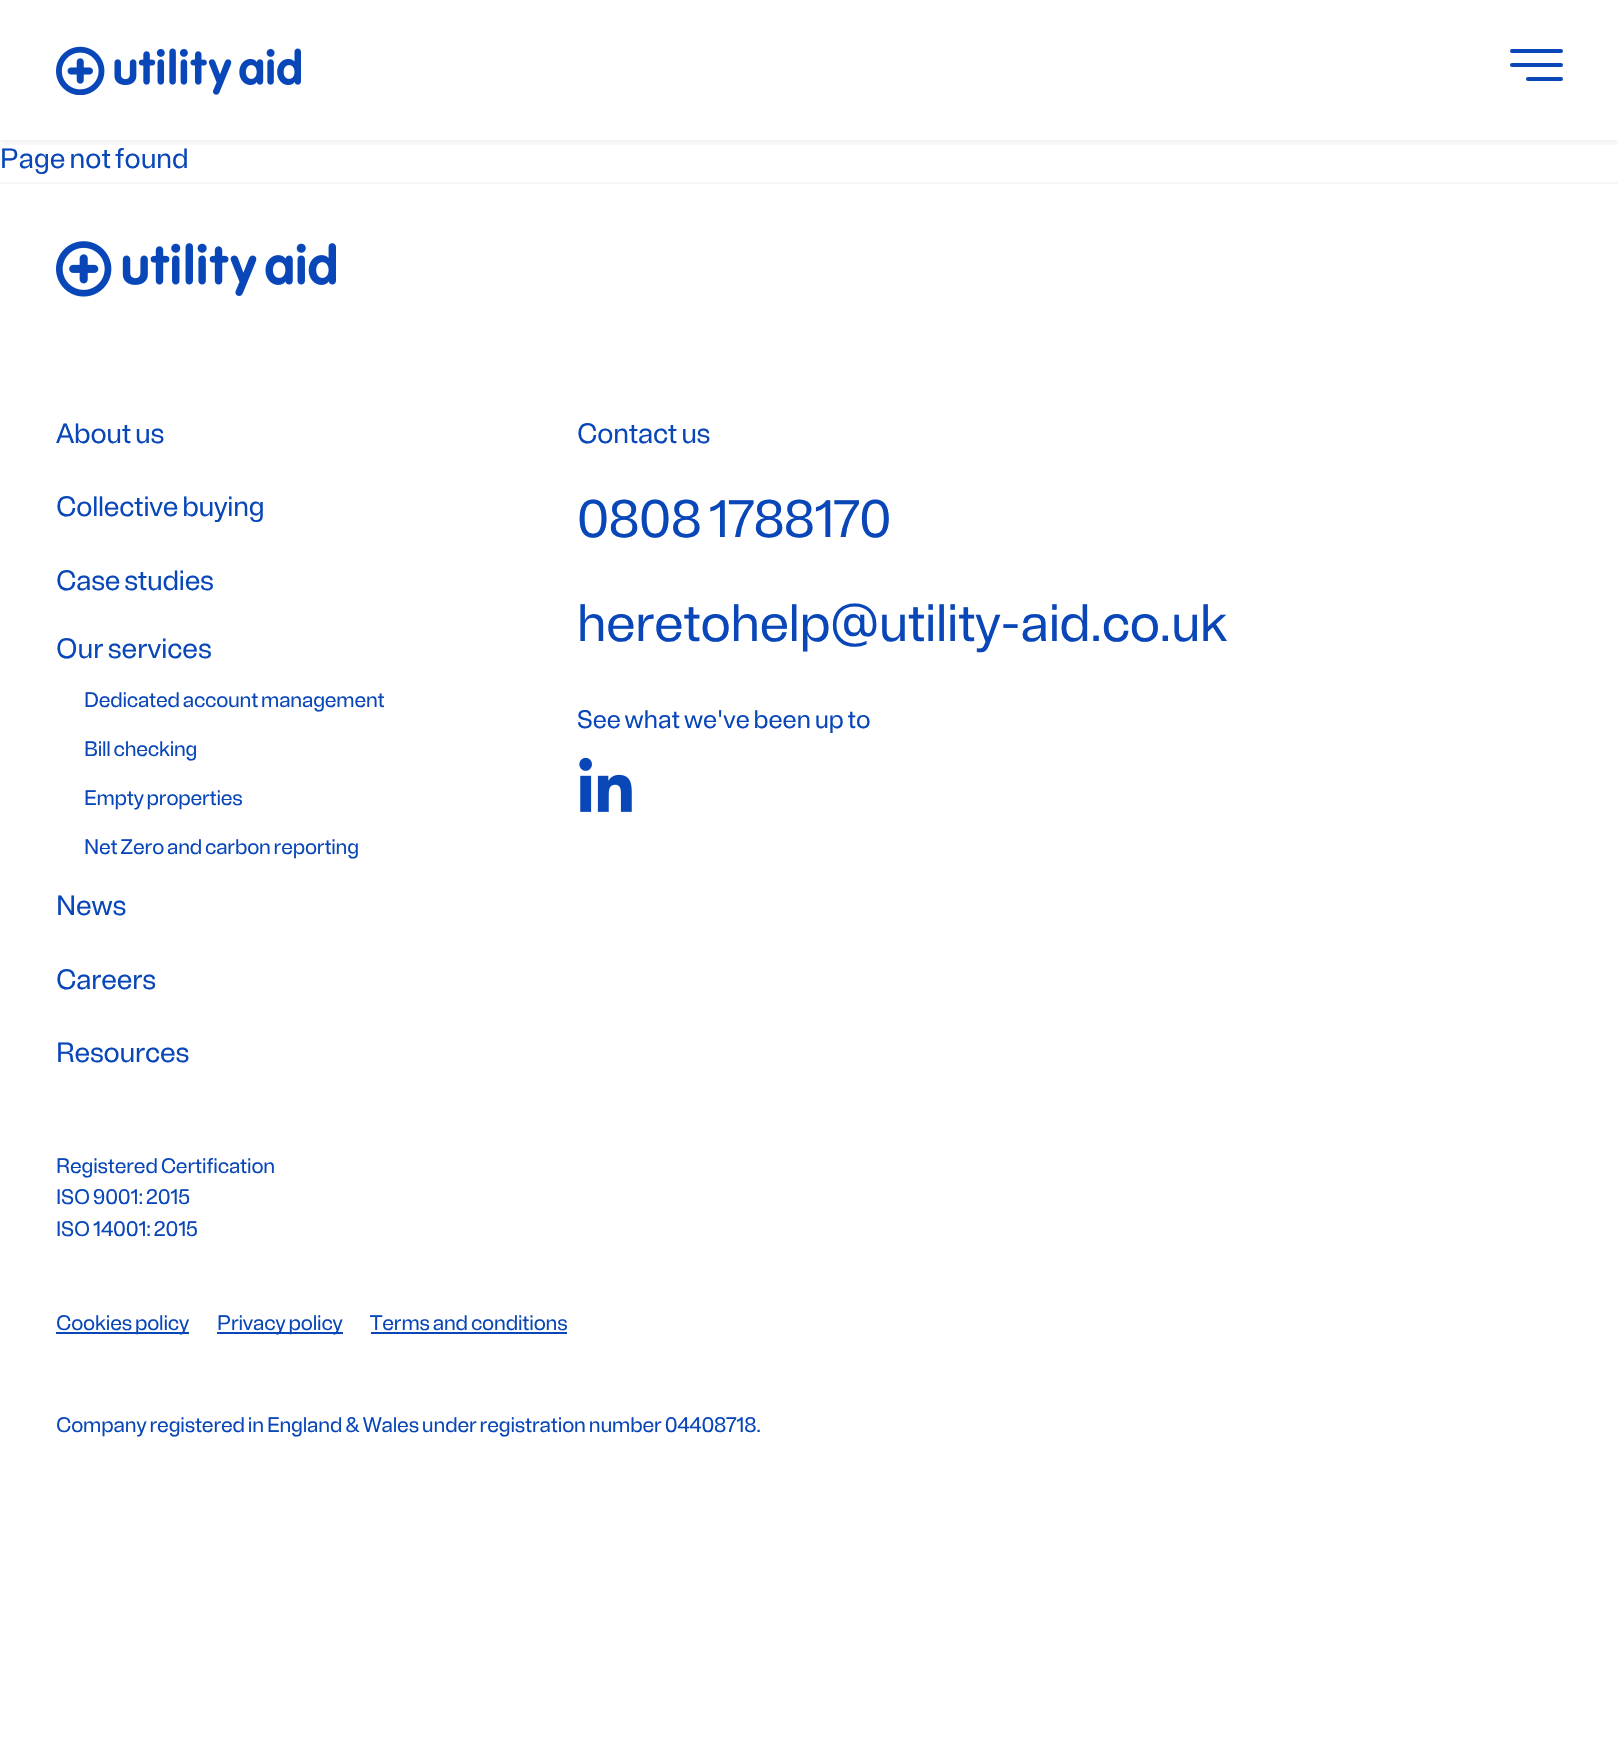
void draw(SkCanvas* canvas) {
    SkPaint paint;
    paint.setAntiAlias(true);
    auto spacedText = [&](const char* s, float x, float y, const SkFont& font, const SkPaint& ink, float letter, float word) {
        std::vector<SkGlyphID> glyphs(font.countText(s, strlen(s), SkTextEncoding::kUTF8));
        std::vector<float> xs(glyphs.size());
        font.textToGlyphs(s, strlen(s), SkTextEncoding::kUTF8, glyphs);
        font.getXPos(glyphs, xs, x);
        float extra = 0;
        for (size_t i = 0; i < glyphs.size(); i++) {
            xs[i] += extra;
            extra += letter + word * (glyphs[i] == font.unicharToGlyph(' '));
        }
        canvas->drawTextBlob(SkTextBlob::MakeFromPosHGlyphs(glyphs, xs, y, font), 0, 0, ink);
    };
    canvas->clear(0xFFFFFFFF);
    canvas->save();
    canvas->clipRect(SkRect::MakeXYWH(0, 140, 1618, 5));
    paint.setColor(0x0D000000);
    paint.setMaskFilter(SkMaskFilter::MakeBlur(kNormal_SkBlurStyle, 3.5f));
    canvas->drawRect(SkRect::MakeXYWH(0, 4, 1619, 140), paint);
    paint.setMaskFilter(nullptr);
    canvas->restore();
    canvas->drawImageRect(SkImages::DeferredFromEncodedData(SkData::MakeFromFileName("img1.png")), SkRect::MakeXYWH(56, 46, 245, 49), SkSamplingOptions());
    paint.setColor(0xFF0947B9);
    canvas->drawRoundRect(SkRect::MakeXYWH(1510, 49, 53, 4), 2, 2, paint);
    canvas->drawRoundRect(SkRect::MakeXYWH(1510, 63, 53, 4), 2, 2, paint);
    canvas->drawRoundRect(SkRect::MakeXYWH(1526, 77, 37, 4), 2, 2, paint);
    SkFont font1(fontMgr->matchFamilyStyle("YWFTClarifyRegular", SkFontStyle::Normal()), 28);
    font1.setSubpixel(true);
    canvas->drawString("Page not found", 0, 168, font1, paint);
    paint.setColor(0xFFF6F6F6);
    canvas->drawRect(SkRect::MakeXYWH(0, 182, 1618, 2), paint);
    canvas->drawImageRect(SkImages::DeferredFromEncodedData(SkData::MakeFromFileName("img2.png")), SkRect::MakeXYWH(56, 241, 280, 56), SkSamplingOptions());
    paint.setColor(0xFF0947B9);
    spacedText("About us", 56, 443, font1, paint, -0.2f, 0);
    spacedText("Collective buying", 56, 516, font1, paint, -0.2f, 0);
    spacedText("Case studies", 56, 590, font1, paint, -0.2f, 0);
    canvas->drawString("Our services", 56, 658, font1, paint);
    SkFont font2(fontMgr->matchFamilyStyle("YWFTClarifyRegular", SkFontStyle::Normal()), 21);
    font2.setSubpixel(true);
    spacedText("Dedicated account management", 84, 707, font2, paint, -0.2f, 0);
    spacedText("Bill checking", 84, 756, font2, paint, -0.2f, 0);
    spacedText("Empty properties", 84, 805, font2, paint, -0.2f, 0);
    spacedText("Net Zero and carbon reporting", 84, 854, font2, paint, -0.2f, 0);
    spacedText("News", 56, 915, font1, paint, -0.2f, 0);
    spacedText("Careers", 56, 989, font1, paint, -0.2f, 0);
    spacedText("Resources", 56, 1062, font1, paint, -0.2f, 0);
    spacedText("Contact us", 577, 443, font1, paint, -0.2f, 0);
    SkFont font3(fontMgr->matchFamilyStyle("YWFTClarifyRegular", SkFontStyle::Normal()), 52.5f);
    font3.setSubpixel(true);
    spacedText("0808 1788170", 577, 537, font3, paint, -0.35f, 0);
    spacedText("heretohelp@utility-aid.co.uk", 577, 641, font3, paint, -0.35f, 0);
    SkFont font4(fontMgr->matchFamilyStyle("YWFTClarifyRegular", SkFontStyle::Normal()), 25.25f);
    font4.setSubpixel(true);
    canvas->drawString("See what we've been up to", 577, 728, font4, paint);
    canvas->drawImageRect(SkImages::DeferredFromEncodedData(SkData::MakeFromFileName("img3.png")), SkRect::MakeXYWH(579, 757, 53, 55), SkSamplingOptions());
    spacedText("Registered Certification", 56, 1173, font2, paint, -0.15f, 0);
    spacedText("ISO 9001: 2015", 56, 1204, font2, paint, -0.15f, 0);
    spacedText("ISO 14001: 2015", 56, 1236, font2, paint, -0.15f, 0);
    canvas->drawRect(SkRect::MakeXYWH(56, 1332, 133, 2), paint);
    spacedText("Cookies policy", 56, 1330, font2, paint, -0.15f, 0);
    canvas->drawRect(SkRect::MakeXYWH(217, 1332, 126, 2), paint);
    spacedText("Privacy policy", 217, 1330, font2, paint, -0.15f, 0);
    spacedText("Terms and conditions", 370, 1330, font2, paint, -0.15f, 0);
    canvas->drawRect(SkRect::MakeXYWH(371, 1332, 196, 2), paint);
    spacedText("Company registered in England & Wales under registration number 04408718.", 56, 1432, font2, paint, -0.15f, 0);
}
